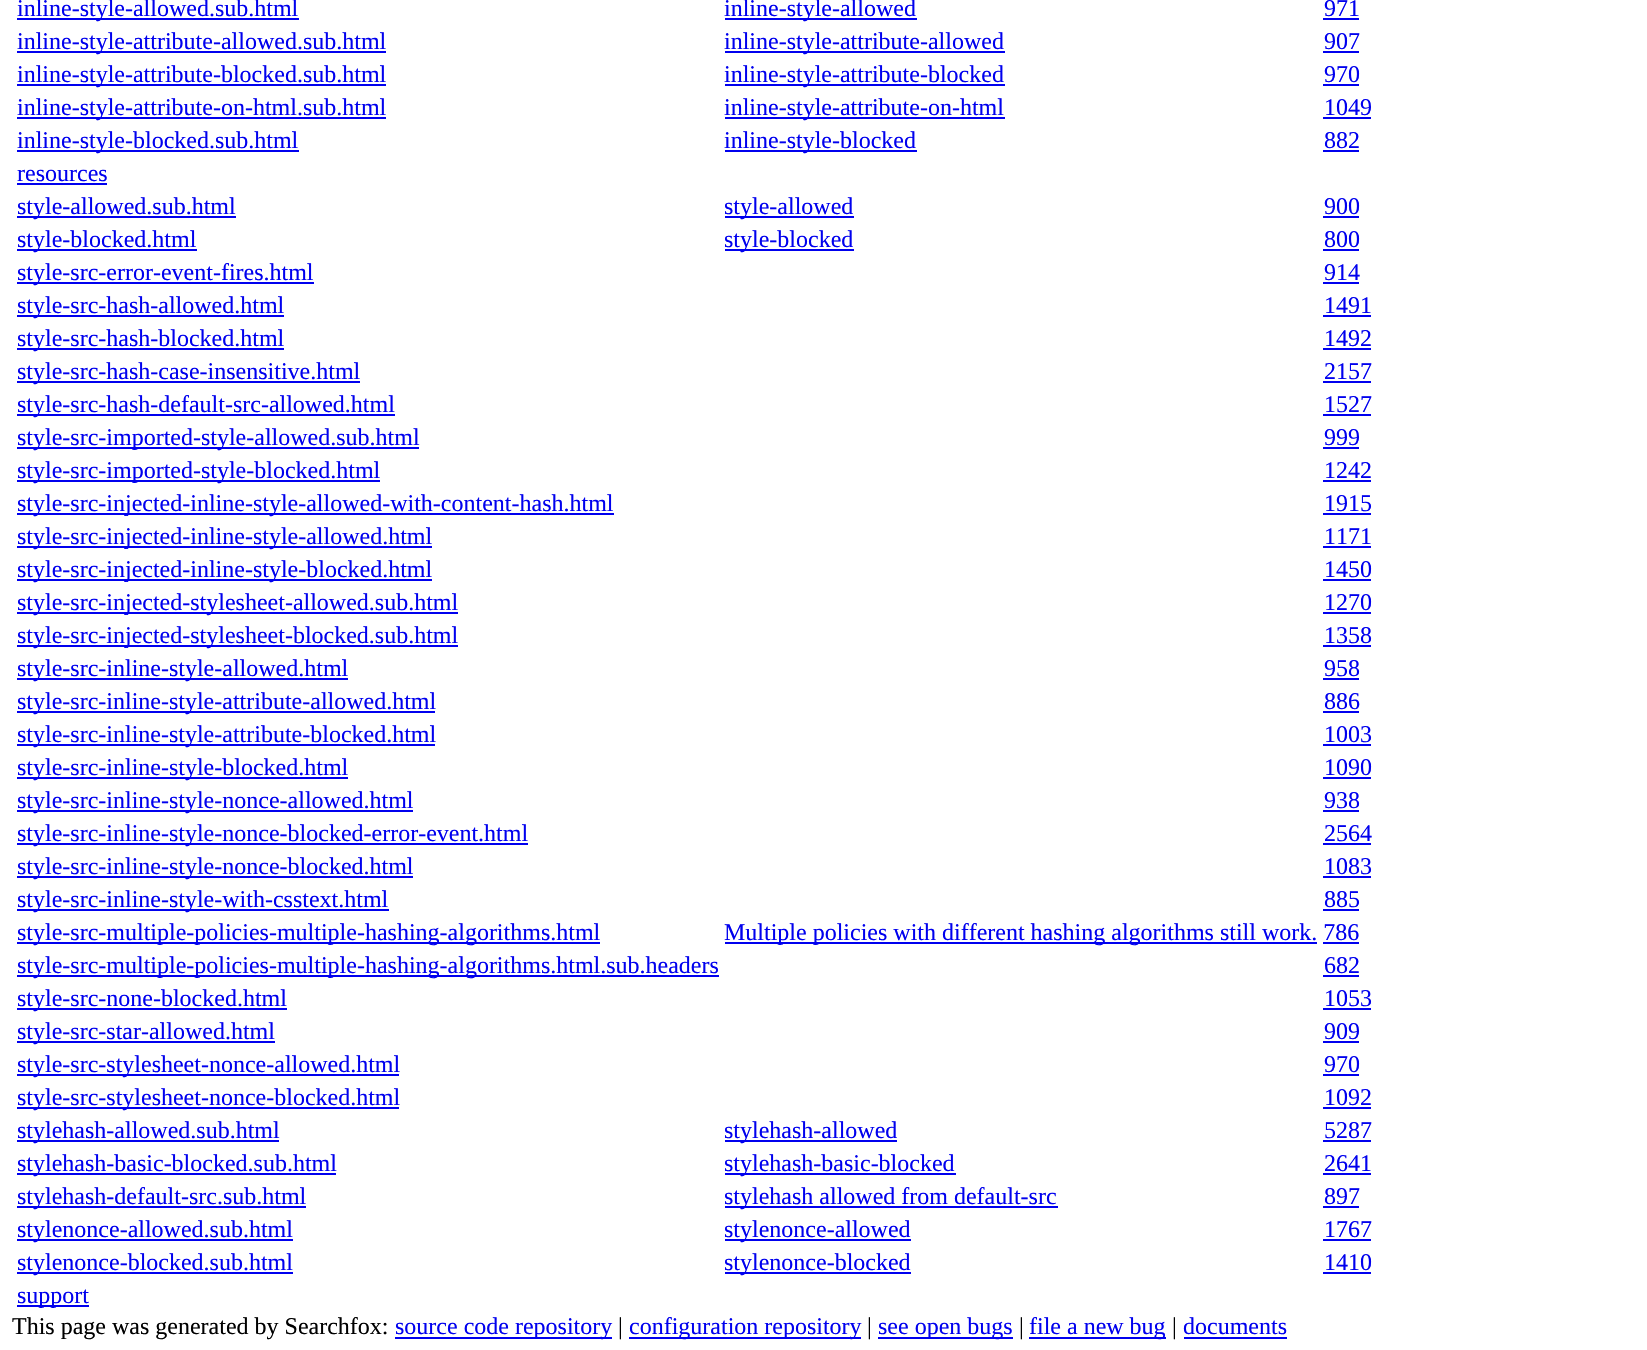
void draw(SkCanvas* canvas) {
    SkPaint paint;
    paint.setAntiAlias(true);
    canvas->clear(0xFFFFFFFF);
    paint.setColor(0xFF0000EE);
    canvas->drawRect(SkRect::MakeXYWH(17, 18, 282, 2), paint);
    SkFont font1(fontMgr->matchFamilyStyle("Liberation Serif", SkFontStyle::Normal()), 24);
    font1.setSubpixel(true);
    canvas->drawString("inline-style-allowed.sub.html", 17, 16, font1, paint);
    canvas->drawRect(SkRect::MakeXYWH(725, 18, 192, 2), paint);
    canvas->drawString("inline-style-allowed", 724, 16, font1, paint);
    canvas->drawString("971", 1324, 16, font1, paint);
    canvas->drawRect(SkRect::MakeXYWH(1323, 18, 36, 2), paint);
    canvas->drawRect(SkRect::MakeXYWH(17, 51, 369, 2), paint);
    canvas->drawString("inline-style-attribute-allowed.sub.html", 17, 49, font1, paint);
    canvas->drawRect(SkRect::MakeXYWH(725, 51, 280, 2), paint);
    canvas->drawString("inline-style-attribute-allowed", 724, 49, font1, paint);
    canvas->drawString("907", 1324, 49, font1, paint);
    canvas->drawRect(SkRect::MakeXYWH(1323, 51, 36, 2), paint);
    canvas->drawRect(SkRect::MakeXYWH(17, 84, 369, 2), paint);
    canvas->drawString("inline-style-attribute-blocked.sub.html", 17, 82, font1, paint);
    canvas->drawRect(SkRect::MakeXYWH(725, 84, 280, 2), paint);
    canvas->drawString("inline-style-attribute-blocked", 724, 82, font1, paint);
    canvas->drawString("970", 1324, 82, font1, paint);
    canvas->drawRect(SkRect::MakeXYWH(1323, 84, 36, 2), paint);
    canvas->drawRect(SkRect::MakeXYWH(17, 117, 369, 2), paint);
    canvas->drawString("inline-style-attribute-on-html.sub.html", 17, 115, font1, paint);
    canvas->drawRect(SkRect::MakeXYWH(725, 117, 280, 2), paint);
    canvas->drawString("inline-style-attribute-on-html", 724, 115, font1, paint);
    canvas->drawString("1049", 1324, 115, font1, paint);
    canvas->drawRect(SkRect::MakeXYWH(1323, 117, 48, 2), paint);
    canvas->drawRect(SkRect::MakeXYWH(17, 150, 282, 2), paint);
    canvas->drawString("inline-style-blocked.sub.html", 17, 148, font1, paint);
    canvas->drawRect(SkRect::MakeXYWH(725, 150, 192, 2), paint);
    canvas->drawString("inline-style-blocked", 724, 148, font1, paint);
    canvas->drawString("882", 1324, 148, font1, paint);
    canvas->drawRect(SkRect::MakeXYWH(1323, 150, 36, 2), paint);
    canvas->drawString("resources", 17, 181, font1, paint);
    canvas->drawRect(SkRect::MakeXYWH(17, 183, 90, 2), paint);
    canvas->drawRect(SkRect::MakeXYWH(17, 216, 219, 2), paint);
    canvas->drawString("style-allowed.sub.html", 17, 214, font1, paint);
    canvas->drawRect(SkRect::MakeXYWH(725, 216, 129, 2), paint);
    canvas->drawString("style-allowed", 724, 214, font1, paint);
    canvas->drawString("900", 1324, 214, font1, paint);
    canvas->drawRect(SkRect::MakeXYWH(1323, 216, 36, 2), paint);
    canvas->drawRect(SkRect::MakeXYWH(17, 249, 180, 2), paint);
    canvas->drawString("style-blocked.html", 17, 247, font1, paint);
    canvas->drawRect(SkRect::MakeXYWH(725, 249, 129, 2), paint);
    canvas->drawString("style-blocked", 724, 247, font1, paint);
    canvas->drawString("800", 1324, 247, font1, paint);
    canvas->drawRect(SkRect::MakeXYWH(1323, 249, 36, 2), paint);
    canvas->drawRect(SkRect::MakeXYWH(17, 282, 297, 2), paint);
    canvas->drawString("style-src-error-event-fires.html", 17, 280, font1, paint);
    canvas->drawString("914", 1324, 280, font1, paint);
    canvas->drawRect(SkRect::MakeXYWH(1323, 282, 36, 2), paint);
    canvas->drawRect(SkRect::MakeXYWH(17, 315, 267, 2), paint);
    canvas->drawString("style-src-hash-allowed.html", 17, 313, font1, paint);
    canvas->drawString("1491", 1324, 313, font1, paint);
    canvas->drawRect(SkRect::MakeXYWH(1323, 315, 48, 2), paint);
    canvas->drawRect(SkRect::MakeXYWH(17, 348, 267, 2), paint);
    canvas->drawString("style-src-hash-blocked.html", 17, 346, font1, paint);
    canvas->drawString("1492", 1324, 346, font1, paint);
    canvas->drawRect(SkRect::MakeXYWH(1323, 348, 48, 2), paint);
    canvas->drawRect(SkRect::MakeXYWH(17, 381, 343, 2), paint);
    canvas->drawString("style-src-hash-case-insensitive.html", 17, 379, font1, paint);
    canvas->drawString("2157", 1324, 379, font1, paint);
    canvas->drawRect(SkRect::MakeXYWH(1323, 381, 48, 2), paint);
    canvas->drawRect(SkRect::MakeXYWH(17, 414, 378, 2), paint);
    canvas->drawString("style-src-hash-default-src-allowed.html", 17, 412, font1, paint);
    canvas->drawString("1527", 1324, 412, font1, paint);
    canvas->drawRect(SkRect::MakeXYWH(1323, 414, 48, 2), paint);
    canvas->drawRect(SkRect::MakeXYWH(17, 447, 402, 2), paint);
    canvas->drawString("style-src-imported-style-allowed.sub.html", 17, 445, font1, paint);
    canvas->drawString("999", 1324, 445, font1, paint);
    canvas->drawRect(SkRect::MakeXYWH(1323, 447, 36, 2), paint);
    canvas->drawRect(SkRect::MakeXYWH(17, 480, 363, 2), paint);
    canvas->drawString("style-src-imported-style-blocked.html", 17, 478, font1, paint);
    canvas->drawString("1242", 1324, 478, font1, paint);
    canvas->drawRect(SkRect::MakeXYWH(1323, 480, 48, 2), paint);
    canvas->drawRect(SkRect::MakeXYWH(17, 513, 597, 2), paint);
    canvas->drawString("style-src-injected-inline-style-allowed-with-content-hash.html", 17, 511, font1, paint);
    canvas->drawString("1915", 1324, 511, font1, paint);
    canvas->drawRect(SkRect::MakeXYWH(1323, 513, 48, 2), paint);
    canvas->drawRect(SkRect::MakeXYWH(17, 546, 415, 2), paint);
    canvas->drawString("style-src-injected-inline-style-allowed.html", 17, 544, font1, paint);
    canvas->drawString("1171", 1324, 544, font1, paint);
    canvas->drawRect(SkRect::MakeXYWH(1323, 546, 48, 2), paint);
    canvas->drawRect(SkRect::MakeXYWH(17, 579, 415, 2), paint);
    canvas->drawString("style-src-injected-inline-style-blocked.html", 17, 577, font1, paint);
    canvas->drawString("1450", 1324, 577, font1, paint);
    canvas->drawRect(SkRect::MakeXYWH(1323, 579, 48, 2), paint);
    canvas->drawRect(SkRect::MakeXYWH(17, 612, 441, 2), paint);
    canvas->drawString("style-src-injected-stylesheet-allowed.sub.html", 17, 610, font1, paint);
    canvas->drawString("1270", 1324, 610, font1, paint);
    canvas->drawRect(SkRect::MakeXYWH(1323, 612, 48, 2), paint);
    canvas->drawRect(SkRect::MakeXYWH(17, 645, 441, 2), paint);
    canvas->drawString("style-src-injected-stylesheet-blocked.sub.html", 17, 643, font1, paint);
    canvas->drawString("1358", 1324, 643, font1, paint);
    canvas->drawRect(SkRect::MakeXYWH(1323, 645, 48, 2), paint);
    canvas->drawRect(SkRect::MakeXYWH(17, 678, 331, 2), paint);
    canvas->drawString("style-src-inline-style-allowed.html", 17, 676, font1, paint);
    canvas->drawString("958", 1324, 676, font1, paint);
    canvas->drawRect(SkRect::MakeXYWH(1323, 678, 36, 2), paint);
    canvas->drawRect(SkRect::MakeXYWH(17, 711, 418, 2), paint);
    canvas->drawString("style-src-inline-style-attribute-allowed.html", 17, 709, font1, paint);
    canvas->drawString("886", 1324, 709, font1, paint);
    canvas->drawRect(SkRect::MakeXYWH(1323, 711, 36, 2), paint);
    canvas->drawRect(SkRect::MakeXYWH(17, 744, 418, 2), paint);
    canvas->drawString("style-src-inline-style-attribute-blocked.html", 17, 742, font1, paint);
    canvas->drawString("1003", 1324, 742, font1, paint);
    canvas->drawRect(SkRect::MakeXYWH(1323, 744, 48, 2), paint);
    canvas->drawRect(SkRect::MakeXYWH(17, 777, 331, 2), paint);
    canvas->drawString("style-src-inline-style-blocked.html", 17, 775, font1, paint);
    canvas->drawString("1090", 1324, 775, font1, paint);
    canvas->drawRect(SkRect::MakeXYWH(1323, 777, 48, 2), paint);
    canvas->drawRect(SkRect::MakeXYWH(17, 810, 396, 2), paint);
    canvas->drawString("style-src-inline-style-nonce-allowed.html", 17, 808, font1, paint);
    canvas->drawString("938", 1324, 808, font1, paint);
    canvas->drawRect(SkRect::MakeXYWH(1323, 810, 36, 2), paint);
    canvas->drawRect(SkRect::MakeXYWH(17, 843, 511, 2), paint);
    canvas->drawString("style-src-inline-style-nonce-blocked-error-event.html", 17, 841, font1, paint);
    canvas->drawString("2564", 1324, 841, font1, paint);
    canvas->drawRect(SkRect::MakeXYWH(1323, 843, 48, 2), paint);
    canvas->drawRect(SkRect::MakeXYWH(17, 876, 396, 2), paint);
    canvas->drawString("style-src-inline-style-nonce-blocked.html", 17, 874, font1, paint);
    canvas->drawString("1083", 1324, 874, font1, paint);
    canvas->drawRect(SkRect::MakeXYWH(1323, 876, 48, 2), paint);
    canvas->drawRect(SkRect::MakeXYWH(17, 909, 372, 2), paint);
    canvas->drawString("style-src-inline-style-with-csstext.html", 17, 907, font1, paint);
    canvas->drawString("885", 1324, 907, font1, paint);
    canvas->drawRect(SkRect::MakeXYWH(1323, 909, 36, 2), paint);
    canvas->drawRect(SkRect::MakeXYWH(17, 942, 583, 2), paint);
    canvas->drawString("style-src-multiple-policies-multiple-hashing-algorithms.html", 17, 940, font1, paint);
    canvas->drawRect(SkRect::MakeXYWH(725, 942, 592, 2), paint);
    canvas->drawString("Multiple policies with different hashing algorithms still work. 786", 724, 940, font1, paint);
    canvas->drawRect(SkRect::MakeXYWH(1323, 942, 36, 2), paint);
    canvas->drawRect(SkRect::MakeXYWH(17, 975, 702, 2), paint);
    canvas->drawString("style-src-multiple-policies-multiple-hashing-algorithms.html.sub.headers", 17, 973, font1, paint);
    canvas->drawString("682", 1324, 973, font1, paint);
    canvas->drawRect(SkRect::MakeXYWH(1323, 975, 36, 2), paint);
    canvas->drawRect(SkRect::MakeXYWH(17, 1008, 270, 2), paint);
    canvas->drawString("style-src-none-blocked.html", 17, 1006, font1, paint);
    canvas->drawString("1053", 1324, 1006, font1, paint);
    canvas->drawRect(SkRect::MakeXYWH(1323, 1008, 48, 2), paint);
    canvas->drawRect(SkRect::MakeXYWH(17, 1041, 258, 2), paint);
    canvas->drawString("style-src-star-allowed.html", 17, 1039, font1, paint);
    canvas->drawString("909", 1324, 1039, font1, paint);
    canvas->drawRect(SkRect::MakeXYWH(1323, 1041, 36, 2), paint);
    canvas->drawRect(SkRect::MakeXYWH(17, 1074, 382, 2), paint);
    canvas->drawString("style-src-stylesheet-nonce-allowed.html", 17, 1072, font1, paint);
    canvas->drawString("970", 1324, 1072, font1, paint);
    canvas->drawRect(SkRect::MakeXYWH(1323, 1074, 36, 2), paint);
    canvas->drawRect(SkRect::MakeXYWH(17, 1107, 382, 2), paint);
    canvas->drawString("style-src-stylesheet-nonce-blocked.html", 17, 1105, font1, paint);
    canvas->drawString("1092", 1324, 1105, font1, paint);
    canvas->drawRect(SkRect::MakeXYWH(1323, 1107, 48, 2), paint);
    canvas->drawRect(SkRect::MakeXYWH(17, 1140, 262, 2), paint);
    canvas->drawString("stylehash-allowed.sub.html", 17, 1138, font1, paint);
    canvas->drawRect(SkRect::MakeXYWH(725, 1140, 172, 2), paint);
    canvas->drawString("stylehash-allowed", 724, 1138, font1, paint);
    canvas->drawString("5287", 1324, 1138, font1, paint);
    canvas->drawRect(SkRect::MakeXYWH(1323, 1140, 48, 2), paint);
    canvas->drawRect(SkRect::MakeXYWH(17, 1173, 319, 2), paint);
    canvas->drawString("stylehash-basic-blocked.sub.html", 17, 1171, font1, paint);
    canvas->drawRect(SkRect::MakeXYWH(725, 1173, 231, 2), paint);
    canvas->drawString("stylehash-basic-blocked", 724, 1171, font1, paint);
    canvas->drawString("2641", 1324, 1171, font1, paint);
    canvas->drawRect(SkRect::MakeXYWH(1323, 1173, 48, 2), paint);
    canvas->drawRect(SkRect::MakeXYWH(17, 1206, 289, 2), paint);
    canvas->drawString("stylehash-default-src.sub.html", 17, 1204, font1, paint);
    canvas->drawRect(SkRect::MakeXYWH(725, 1206, 333, 2), paint);
    canvas->drawString("stylehash allowed from default-src", 724, 1204, font1, paint);
    canvas->drawString("897", 1324, 1204, font1, paint);
    canvas->drawRect(SkRect::MakeXYWH(1323, 1206, 36, 2), paint);
    canvas->drawRect(SkRect::MakeXYWH(17, 1239, 276, 2), paint);
    canvas->drawString("stylenonce-allowed.sub.html", 17, 1237, font1, paint);
    canvas->drawRect(SkRect::MakeXYWH(725, 1239, 186, 2), paint);
    canvas->drawString("stylenonce-allowed", 724, 1237, font1, paint);
    canvas->drawString("1767", 1324, 1237, font1, paint);
    canvas->drawRect(SkRect::MakeXYWH(1323, 1239, 48, 2), paint);
    canvas->drawRect(SkRect::MakeXYWH(17, 1272, 276, 2), paint);
    canvas->drawString("stylenonce-blocked.sub.html", 17, 1270, font1, paint);
    canvas->drawRect(SkRect::MakeXYWH(725, 1272, 186, 2), paint);
    canvas->drawString("stylenonce-blocked", 724, 1270, font1, paint);
    canvas->drawString("1410", 1324, 1270, font1, paint);
    canvas->drawRect(SkRect::MakeXYWH(1323, 1272, 48, 2), paint);
    canvas->drawRect(SkRect::MakeXYWH(17, 1305, 72, 2), paint);
    canvas->drawString("support", 17, 1303, font1, paint);
    paint.setColor(0xFF000000);
    canvas->drawString("This page was generated by Searchfox:", 12, 1334, font1, paint);
    paint.setColor(0xFF0000EE);
    canvas->drawRect(SkRect::MakeXYWH(395, 1337, 217, 2), paint);
    canvas->drawString("source code repository", 395, 1334, font1, paint);
    paint.setColor(0xFF000000);
    canvas->drawString("|", 618, 1334, font1, paint);
    paint.setColor(0xFF0000EE);
    canvas->drawRect(SkRect::MakeXYWH(629, 1337, 232, 2), paint);
    canvas->drawString("configuration repository", 629, 1334, font1, paint);
    paint.setColor(0xFF000000);
    canvas->drawString("|", 867, 1334, font1, paint);
    paint.setColor(0xFF0000EE);
    canvas->drawRect(SkRect::MakeXYWH(878, 1337, 135, 2), paint);
    canvas->drawString("see open bugs", 878, 1334, font1, paint);
    paint.setColor(0xFF000000);
    canvas->drawString("|", 1019, 1334, font1, paint);
    paint.setColor(0xFF0000EE);
    canvas->drawRect(SkRect::MakeXYWH(1029, 1337, 137, 2), paint);
    canvas->drawString("file a new bug", 1029, 1334, font1, paint);
    paint.setColor(0xFF000000);
    canvas->drawString("|", 1172, 1334, font1, paint);
    paint.setColor(0xFF0000EE);
    canvas->drawString("documents", 1183, 1334, font1, paint);
    canvas->drawRect(SkRect::MakeXYWH(1184, 1337, 103, 2), paint);
}
